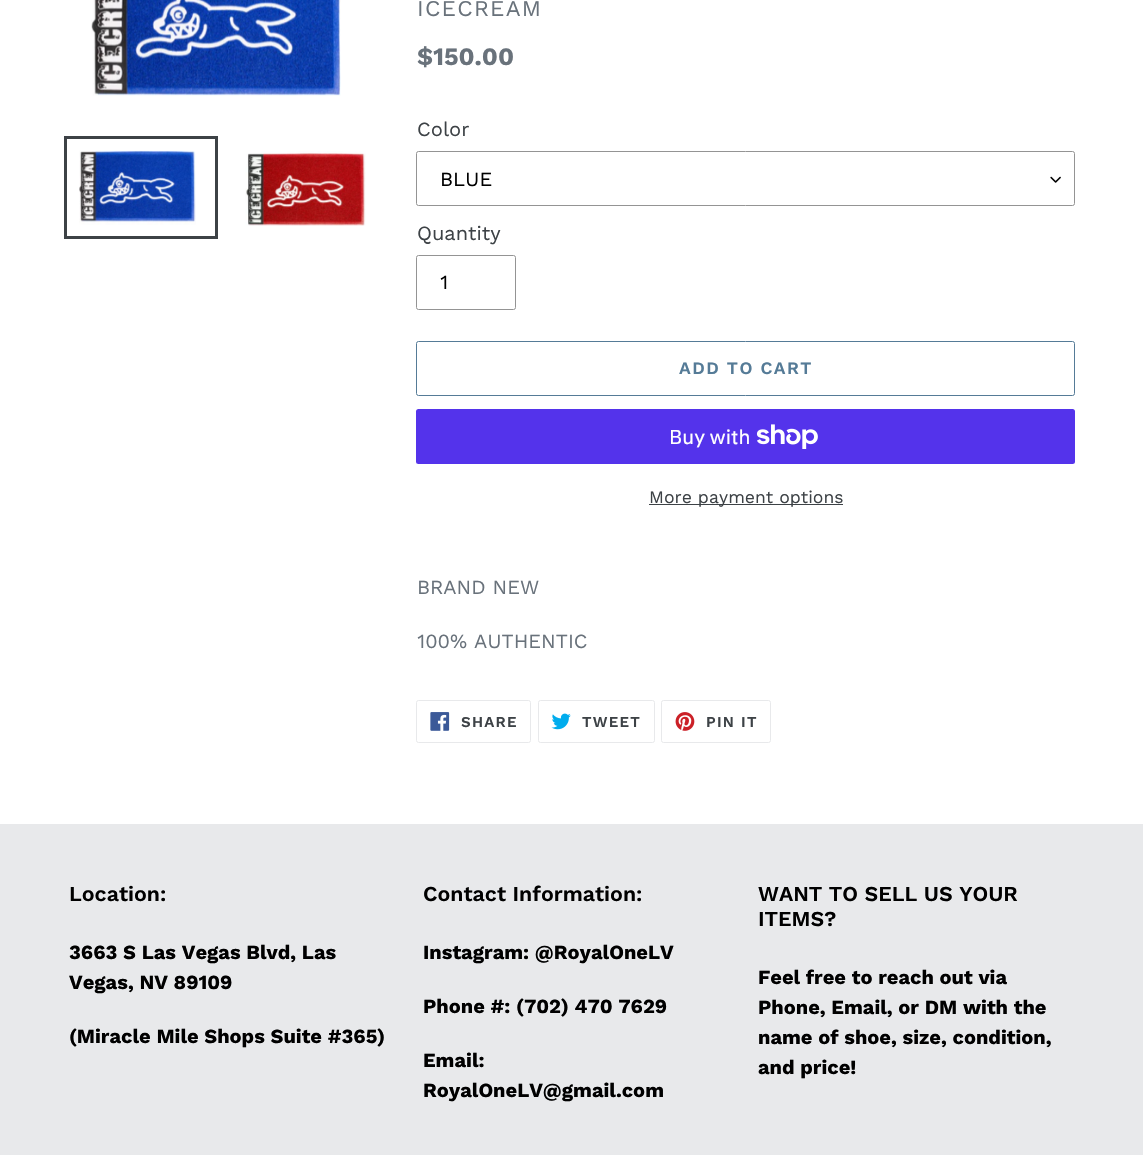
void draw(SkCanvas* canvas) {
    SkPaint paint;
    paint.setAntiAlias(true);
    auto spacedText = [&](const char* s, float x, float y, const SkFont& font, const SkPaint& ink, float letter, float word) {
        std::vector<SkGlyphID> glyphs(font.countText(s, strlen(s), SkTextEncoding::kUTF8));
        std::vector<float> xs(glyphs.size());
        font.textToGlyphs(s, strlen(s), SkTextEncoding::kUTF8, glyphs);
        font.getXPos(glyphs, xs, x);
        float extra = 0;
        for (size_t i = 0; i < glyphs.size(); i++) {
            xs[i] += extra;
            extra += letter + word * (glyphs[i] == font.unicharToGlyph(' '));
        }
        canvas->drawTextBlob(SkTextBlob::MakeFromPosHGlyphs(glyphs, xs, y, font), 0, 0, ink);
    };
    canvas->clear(0xFFFFFFFF);
    canvas->drawImageRect(SkImages::DeferredFromEncodedData(SkData::MakeFromFileName("img1.png")), SkRect::MakeXYWH(91, 0, 250, 96), SkSamplingOptions());
    paint.setStyle(SkPaint::kStroke_Style);
    paint.setStrokeWidth(3);
    paint.setColor(0xFF3D4246);
    canvas->drawRect(SkRect::MakeXYWH(65.5f, 137.5f, 151, 100), paint);
    canvas->drawImageRect(SkImages::DeferredFromEncodedData(SkData::MakeFromFileName("img2.png")), SkRect::MakeXYWH(79, 150, 117, 75), SkSamplingOptions());
    canvas->drawImageRect(SkImages::DeferredFromEncodedData(SkData::MakeFromFileName("img3.png")), SkRect::MakeXYWH(245, 151, 121, 75), SkSamplingOptions());
    SkFont font1(fontMgr->matchFamilyStyle("Work Sans", SkFontStyle::Normal()), 22.5f);
    font1.setSubpixel(true);
    paint.setStyle(SkPaint::kFill_Style);
    paint.setColor(0xFF69727B);
    spacedText("ICECREAM", 417, 16, font1, paint, 1.25f, 0);
    SkFont font2(fontMgr->matchFamilyStyle("Work Sans", SkFontStyle::Bold()), 25);
    font2.setSubpixel(true);
    canvas->drawString("$150.00", 417, 65, font2, paint);
    SkFont font3(fontMgr->matchFamilyStyle("Work Sans", SkFontStyle::Normal()), 20);
    font3.setSubpixel(true);
    paint.setColor(0xFF3D4246);
    canvas->drawString("Color", 417, 136, font3, paint);
    canvas->drawImageRect(SkImages::DeferredFromEncodedData(SkData::MakeFromFileName("img4.png")), SkRect::MakeXYWH(1050, 176, 11, 7), SkSamplingOptions());
    paint.setStyle(SkPaint::kStroke_Style);
    paint.setStrokeWidth(1);
    paint.setColor(0xFF949494);
    canvas->drawRoundRect(SkRect::MakeXYWH(416.5f, 151.5f, 658, 54), 2, 2, paint);
    paint.setStyle(SkPaint::kFill_Style);
    paint.setColor(0xFF000000);
    canvas->drawString("BLUE", 440, 186, font3, paint);
    paint.setColor(0xFF3D4246);
    canvas->drawString("Quantity", 417, 240, font3, paint);
    paint.setStyle(SkPaint::kStroke_Style);
    paint.setColor(0xFF949494);
    canvas->drawRoundRect(SkRect::MakeXYWH(416.5f, 255.5f, 99, 54), 2, 2, paint);
    paint.setStyle(SkPaint::kFill_Style);
    paint.setColor(0xFF000000);
    canvas->drawString("1", 440, 289, font3, paint);
    paint.setStyle(SkPaint::kStroke_Style);
    paint.setColor(0xFF557B97);
    canvas->drawRoundRect(SkRect::MakeXYWH(416.5f, 341.5f, 658, 54), 2, 2, paint);
    SkFont font4(fontMgr->matchFamilyStyle("Work Sans", SkFontStyle(600, SkFontStyle::kNormal_Width, SkFontStyle::kUpright_Slant)), 17.5f);
    font4.setSubpixel(true);
    paint.setStyle(SkPaint::kFill_Style);
    spacedText("ADD TO CART", 679, 374, font4, paint, 1.4f, 0);
    paint.setColor(0xFF5433EB);
    canvas->drawRoundRect(SkRect::MakeXYWH(416, 409, 659, 55), 2.5f, 2.5f, paint);
    SkFont font5(fontMgr->matchFamilyStyle("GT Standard", SkFontStyle::Normal()), 20);
    font5.setSubpixel(true);
    paint.setColor(0xFFFFFFFF);
    canvas->drawString("Buy with", 669, 444, font5, paint);
    canvas->drawImageRect(SkImages::DeferredFromEncodedData(SkData::MakeFromFileName("img5.png")), SkRect::MakeXYWH(756, 424, 62, 25), SkSamplingOptions());
    paint.setColor(0xFF3D4246);
    canvas->drawRect(SkRect::MakeXYWH(649, 504, 194, 1), paint);
    SkFont font6(fontMgr->matchFamilyStyle("Work Sans", SkFontStyle::Normal()), 17.5f);
    font6.setSubpixel(true);
    canvas->drawString("More payment options", 649, 503, font6, paint);
    paint.setColor(0xFF69727B);
    canvas->drawString("BRAND NEW", 417, 594, font3, paint);
    canvas->drawString("100% AUTHENTIC", 417, 648, font3, paint);
    paint.setStyle(SkPaint::kStroke_Style);
    paint.setColor(0xFFE8E9EB);
    canvas->drawRoundRect(SkRect::MakeXYWH(416.5f, 700.5f, 114, 42), 2, 2, paint);
    canvas->drawImageRect(SkImages::DeferredFromEncodedData(SkData::MakeFromFileName("img6.png")), SkRect::MakeXYWH(430, 712, 20, 19), SkSamplingOptions());
    SkFont font7(fontMgr->matchFamilyStyle("Work Sans", SkFontStyle(600, SkFontStyle::kNormal_Width, SkFontStyle::kUpright_Slant)), 15);
    font7.setSubpixel(true);
    paint.setStyle(SkPaint::kFill_Style);
    paint.setColor(0xFF3D4246);
    spacedText("SHARE", 461, 727, font7, paint, 1.25f, 0);
    paint.setStyle(SkPaint::kStroke_Style);
    paint.setColor(0xFFE8E9EB);
    canvas->drawRoundRect(SkRect::MakeXYWH(538.5f, 700.5f, 116, 42), 2, 2, paint);
    canvas->drawImageRect(SkImages::DeferredFromEncodedData(SkData::MakeFromFileName("img7.png")), SkRect::MakeXYWH(551, 713, 20, 17), SkSamplingOptions());
    paint.setStyle(SkPaint::kFill_Style);
    paint.setColor(0xFF3D4246);
    spacedText("TWEET", 582, 727, font7, paint, 1.25f, 0);
    paint.setStyle(SkPaint::kStroke_Style);
    paint.setColor(0xFFE8E9EB);
    canvas->drawRoundRect(SkRect::MakeXYWH(661.5f, 700.5f, 109, 42), 2, 2, paint);
    canvas->drawImageRect(SkImages::DeferredFromEncodedData(SkData::MakeFromFileName("img8.png")), SkRect::MakeXYWH(675, 712, 20, 19), SkSamplingOptions());
    paint.setStyle(SkPaint::kFill_Style);
    paint.setColor(0xFF3D4246);
    spacedText("PIN IT", 706, 727, font7, paint, 1.25f, 0);
    paint.setColor(0xFFE8E9EB);
    canvas->drawRect(SkRect::MakeXYWH(0, 824, 1143, 331), paint);
    SkFont font8(fontMgr->matchFamilyStyle("Work Sans", SkFontStyle(600, SkFontStyle::kNormal_Width, SkFontStyle::kUpright_Slant)), 21.25f);
    font8.setSubpixel(true);
    paint.setColor(0xFF000000);
    canvas->drawString("Location:", 69, 901, font8, paint);
    SkFont font9(fontMgr->matchFamilyStyle("Work Sans", SkFontStyle::Bold()), 20);
    font9.setSubpixel(true);
    canvas->drawString("3663 S Las Vegas Blvd, Las", 69, 959, font9, paint);
    canvas->drawString("Vegas, NV 89109", 69, 989, font9, paint);
    canvas->drawString("(Miracle Mile Shops Suite #365)", 69, 1043, font9, paint);
    canvas->drawString("Contact Information:", 423, 901, font8, paint);
    canvas->drawString("Instagram: @RoyalOneLV", 423, 959, font9, paint);
    canvas->drawString("Phone #: (702) 470 7629", 423, 1013, font9, paint);
    canvas->drawString("Email:", 423, 1067, font9, paint);
    canvas->drawString("RoyalOneLV@gmail.com", 423, 1097, font9, paint);
    canvas->drawString("WANT TO SELL US YOUR", 758, 901, font8, paint);
    canvas->drawString("ITEMS?", 758, 926, font8, paint);
    canvas->drawString("Feel free to reach out via", 758, 984, font9, paint);
    canvas->drawString("Phone, Email, or DM with the", 758, 1014, font9, paint);
    canvas->drawString("name of shoe, size, condition,", 758, 1044, font9, paint);
    canvas->drawString("and price!", 758, 1074, font9, paint);
}
